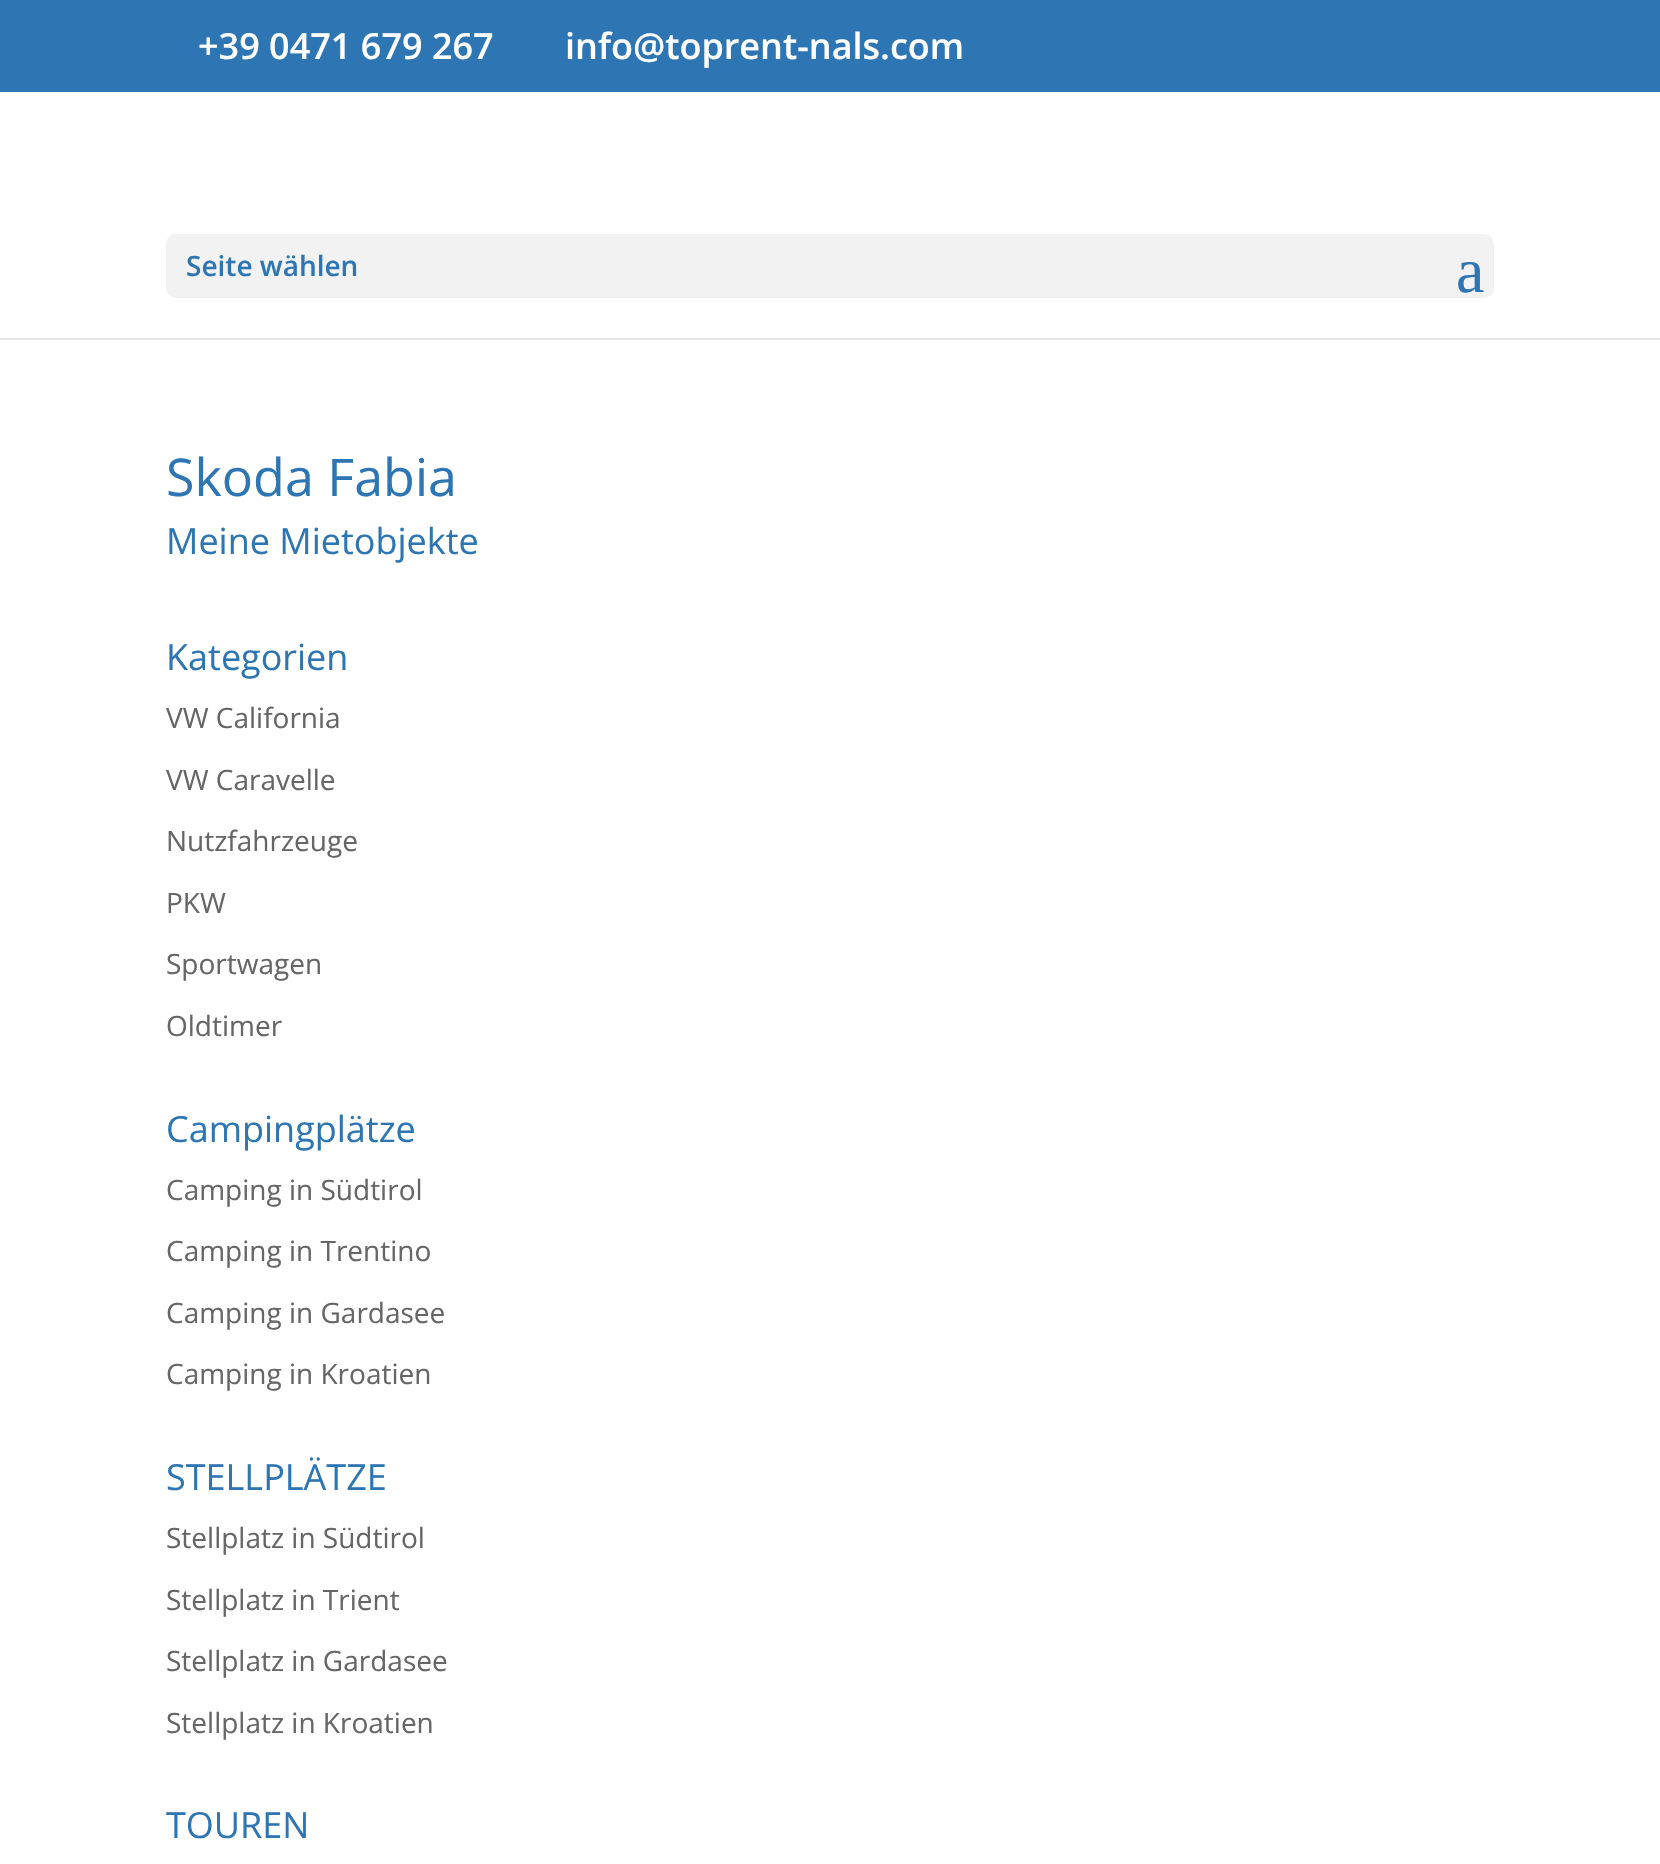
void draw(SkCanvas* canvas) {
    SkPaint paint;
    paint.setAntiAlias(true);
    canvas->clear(0xFF2E76B3);
    SkFont font1(fontMgr->matchFamilyStyle("Open Sans", SkFontStyle(600, SkFontStyle::kNormal_Width, SkFontStyle::kUpright_Slant)), 36);
    font1.setSubpixel(true);
    paint.setColor(0xFFFFFFFF);
    canvas->drawString("+39 0471 679 267", 198, 59, font1, paint);
    canvas->drawString("info@toprent-nals.com", 565, 59, font1, paint);
    paint.setColor(0xFFE6E6E6);
    canvas->drawRect(SkRect::MakeXYWH(0, 338, 1660, 2), paint);
    paint.setColor(0xFFFFFFFF);
    canvas->drawRect(SkRect::MakeXYWH(0, 92, 1660, 246), paint);
    paint.setColor(0xFFF2F2F2);
    canvas->drawRoundRect(SkRect::MakeXYWH(166, 234, 1328, 64), 10, 10, paint);
    SkFont font2(fontMgr->matchFamilyStyle("Open Sans", SkFontStyle(600, SkFontStyle::kNormal_Width, SkFontStyle::kUpright_Slant)), 28);
    font2.setSubpixel(true);
    paint.setColor(0xFF2E76B3);
    canvas->drawString("Seite wählen", 186, 276, font2, paint);
    SkFont font3(fontMgr->matchFamilyStyle("Liberation Serif", SkFontStyle::Normal()), 64);
    font3.setSubpixel(true);
    canvas->drawString("a", 1456, 292, font3, paint);
    paint.setColor(0xFFFFFFFF);
    canvas->drawRect(SkRect::MakeXYWH(0, 340, 1660, 1524), paint);
    SkFont font4(fontMgr->matchFamilyStyle("Open Sans", SkFontStyle::Normal()), 52);
    font4.setSubpixel(true);
    paint.setColor(0xFF2E76B3);
    canvas->drawString("Skoda Fabia", 166, 496, font4, paint);
    SkFont font5(fontMgr->matchFamilyStyle("Open Sans", SkFontStyle::Normal()), 36);
    font5.setSubpixel(true);
    canvas->drawString("Meine Mietobjekte", 166, 554, font5, paint);
    canvas->drawString("Kategorien", 166, 670, font5, paint);
    SkFont font6(fontMgr->matchFamilyStyle("Open Sans", SkFontStyle::Normal()), 28);
    font6.setSubpixel(true);
    paint.setColor(0xFF666666);
    canvas->drawString("VW California", 166, 728, font6, paint);
    canvas->drawString("VW Caravelle", 166, 790, font6, paint);
    canvas->drawString("Nutzfahrzeuge", 166, 851, font6, paint);
    canvas->drawString("PKW", 166, 913, font6, paint);
    canvas->drawString("Sportwagen", 166, 974, font6, paint);
    canvas->drawString("Oldtimer", 166, 1036, font6, paint);
    paint.setColor(0xFF2E76B3);
    canvas->drawString("Campingplätze", 166, 1142, font5, paint);
    paint.setColor(0xFF666666);
    canvas->drawString("Camping in Südtirol", 166, 1200, font6, paint);
    canvas->drawString("Camping in Trentino", 166, 1261, font6, paint);
    canvas->drawString("Camping in Gardasee", 166, 1323, font6, paint);
    canvas->drawString("Camping in Kroatien", 166, 1384, font6, paint);
    paint.setColor(0xFF2E76B3);
    canvas->drawString("STELLPLÄTZE", 166, 1490, font5, paint);
    paint.setColor(0xFF666666);
    canvas->drawString("Stellplatz in Südtirol", 166, 1548, font6, paint);
    canvas->drawString("Stellplatz in Trient", 166, 1610, font6, paint);
    canvas->drawString("Stellplatz in Gardasee", 166, 1671, font6, paint);
    canvas->drawString("Stellplatz in Kroatien", 166, 1733, font6, paint);
    paint.setColor(0xFF2E76B3);
    canvas->drawString("TOUREN", 166, 1838, font5, paint);
}
